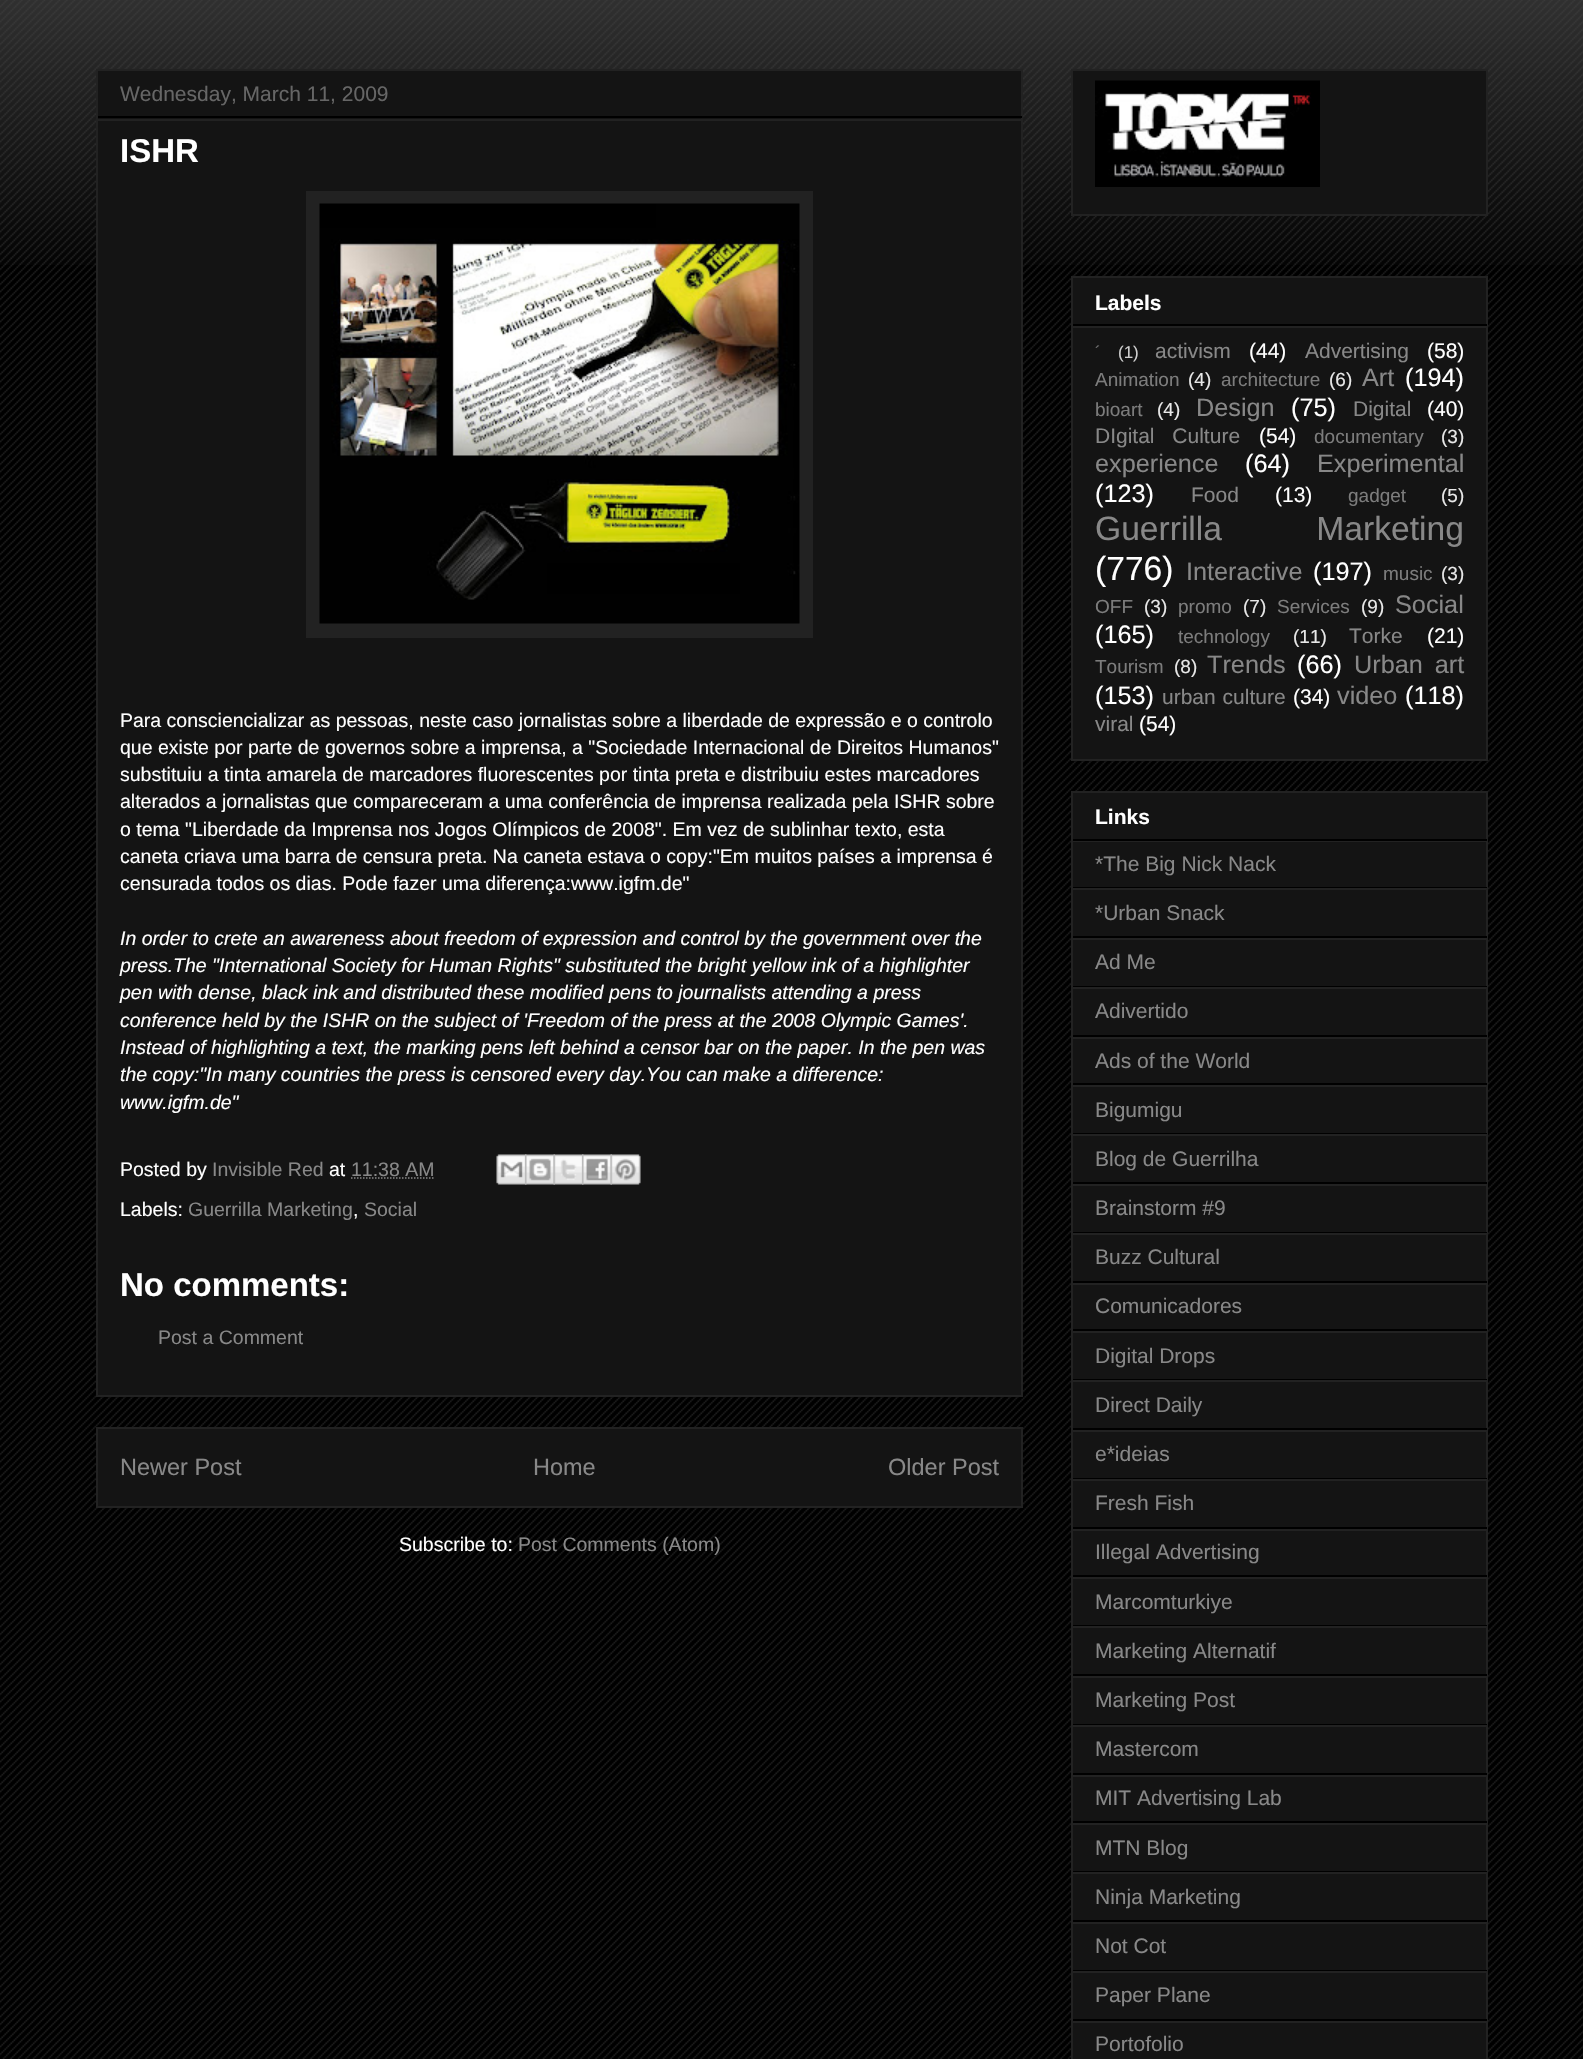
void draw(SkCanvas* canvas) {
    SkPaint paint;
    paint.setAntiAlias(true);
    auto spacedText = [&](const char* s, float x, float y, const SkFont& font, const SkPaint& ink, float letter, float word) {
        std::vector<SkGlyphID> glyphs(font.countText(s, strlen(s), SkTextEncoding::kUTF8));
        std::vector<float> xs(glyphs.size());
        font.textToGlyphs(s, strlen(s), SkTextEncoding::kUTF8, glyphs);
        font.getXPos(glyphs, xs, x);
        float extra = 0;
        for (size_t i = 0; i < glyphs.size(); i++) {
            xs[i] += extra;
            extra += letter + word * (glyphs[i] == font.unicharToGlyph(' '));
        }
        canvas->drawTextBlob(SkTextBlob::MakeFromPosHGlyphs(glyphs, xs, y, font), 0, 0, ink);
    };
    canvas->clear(0xFF000000);
    canvas->drawImageRect(SkImages::DeferredFromEncodedData(SkData::MakeFromFileName("img1.png")), SkRect::MakeXYWH(0, 0, 1583, 2059), SkSamplingOptions());
    canvas->drawImageRect(SkImages::DeferredFromEncodedData(SkData::MakeFromFileName("img2.png")), SkRect::MakeXYWH(0, 0, 1583, 265), SkSamplingOptions());
    paint.setColor(0xFF141414);
    canvas->drawRect(SkRect::MakeXYWH(97, 70, 925, 1326), paint);
    paint.setStyle(SkPaint::kStroke_Style);
    paint.setStrokeWidth(2);
    paint.setColor(0xFF222222);
    canvas->drawRect(SkRect::MakeXYWH(97, 70, 925, 1326), paint);
    paint.setStyle(SkPaint::kFill_Style);
    paint.setColor(0xFF000000);
    canvas->drawRect(SkRect::MakeXYWH(98, 116, 924, 2), paint);
    SkFont font1(fontMgr->matchFamilyStyle("Liberation Sans", SkFontStyle::Normal()), 21);
    font1.setSubpixel(true);
    paint.setColor(0xFF666666);
    canvas->drawString("Wednesday, March 11, 2009", 120, 101, font1, paint);
    paint.setColor(0xFF222222);
    canvas->drawRect(SkRect::MakeXYWH(98, 119, 924, 2), paint);
    SkFont font2(fontMgr->matchFamilyStyle("Liberation Sans", SkFontStyle::Bold()), 33);
    font2.setSubpixel(true);
    paint.setColor(0xFFFFFFFF);
    canvas->drawString("ISHR", 120, 162, font2, paint);
    paint.setColor(0xFF222222);
    canvas->drawRect(SkRect::MakeXYWH(306, 191, 507, 447), paint);
    canvas->drawImageRect(SkImages::DeferredFromEncodedData(SkData::MakeFromFileName("img3.png")), SkRect::MakeXYWH(319, 203, 481, 421), SkSamplingOptions());
    SkFont font3(fontMgr->matchFamilyStyle("Liberation Sans", SkFontStyle::Normal()), 19.5f);
    font3.setSubpixel(true);
    paint.setColor(0xFFFFFFFF);
    canvas->drawString("Para consciencializar as pessoas, neste caso jornalistas sobre a liberdade de expressão e o controlo", 120, 727, font3, paint);
    canvas->drawString("que existe por parte de governos sobre a imprensa, a \"Sociedade Internacional de Direitos Humanos\"", 120, 754, font3, paint);
    canvas->drawString("substituiu a tinta amarela de marcadores fluorescentes por tinta preta e distribuiu estes marcadores", 120, 781, font3, paint);
    canvas->drawString("alterados a jornalistas que compareceram a uma conferência de imprensa realizada pela ISHR sobre", 120, 808, font3, paint);
    canvas->drawString("o tema \"Liberdade da Imprensa nos Jogos Olímpicos de 2008\". Em vez de sublinhar texto, esta", 120, 836, font3, paint);
    canvas->drawString("caneta criava uma barra de censura preta. Na caneta estava o copy:\"Em muitos países a imprensa é", 120, 863, font3, paint);
    canvas->drawString("censurada todos os dias. Pode fazer uma diferença:www.igfm.de\"", 120, 890, font3, paint);
    SkFont font4(fontMgr->matchFamilyStyle("Liberation Sans", SkFontStyle::Italic()), 19.5f);
    font4.setSubpixel(true);
    canvas->drawString("In order to crete an awareness about freedom of expression and control by the government over the", 120, 945, font4, paint);
    canvas->drawString("press.The \"International Society for Human Rights\" substituted the bright yellow ink of a highlighter", 120, 972, font4, paint);
    canvas->drawString("pen with dense, black ink and distributed these modified pens to journalists attending a press", 120, 999, font4, paint);
    canvas->drawString("conference held by the ISHR on the subject of 'Freedom of the press at the 2008 Olympic Games'.", 120, 1027, font4, paint);
    canvas->drawString("Instead of highlighting a text, the marking pens left behind a censor bar on the paper. In the pen was", 120, 1054, font4, paint);
    canvas->drawString("the copy:\"In many countries the press is censored every day.You can make a difference:", 120, 1081, font4, paint);
    canvas->drawString("www.igfm.de\"", 120, 1109, font4, paint);
    canvas->drawString("Posted by", 120, 1176, font3, paint);
    paint.setColor(0xFF888888);
    canvas->drawString("Invisible Red", 212, 1176, font3, paint);
    paint.setColor(0xFFFFFFFF);
    canvas->drawString("at", 329, 1176, font3, paint);
    paint.setColor(0xFF888888);
    canvas->drawString("11:38 AM", 351, 1176, font3, paint);
    paint.setStyle(SkPaint::kStroke_Style);
    paint.setStrokeWidth(1.5f);
    paint.setPathEffect(SkDashPathEffect::Make({{1.5f, 1.5f}}, 0));
    canvas->drawPath(SkPathBuilder().moveTo(351, 1178).lineTo(434.5f, 1178).detach(), paint);
    paint.setPathEffect(nullptr);
    canvas->drawImageRect(SkImages::DeferredFromEncodedData(SkData::MakeFromFileName("img4.png")), SkRect::MakeXYWH(496, 1154, 31, 31), SkSamplingOptions());
    canvas->drawImageRect(SkImages::DeferredFromEncodedData(SkData::MakeFromFileName("img5.png")), SkRect::MakeXYWH(525, 1154, 30, 31), SkSamplingOptions());
    canvas->drawImageRect(SkImages::DeferredFromEncodedData(SkData::MakeFromFileName("img6.png")), SkRect::MakeXYWH(553, 1154, 31, 31), SkSamplingOptions());
    canvas->drawImageRect(SkImages::DeferredFromEncodedData(SkData::MakeFromFileName("img7.png")), SkRect::MakeXYWH(582, 1154, 30, 31), SkSamplingOptions());
    canvas->drawImageRect(SkImages::DeferredFromEncodedData(SkData::MakeFromFileName("img8.png")), SkRect::MakeXYWH(610, 1154, 31, 31), SkSamplingOptions());
    paint.setStyle(SkPaint::kFill_Style);
    paint.setColor(0xFFFFFFFF);
    canvas->drawString("Labels:", 120, 1216, font3, paint);
    paint.setColor(0xFF888888);
    canvas->drawString("Guerrilla Marketing", 188, 1216, font3, paint);
    paint.setColor(0xFFFFFFFF);
    canvas->drawString(",", 353, 1216, font3, paint);
    paint.setColor(0xFF888888);
    canvas->drawString("Social", 364, 1216, font3, paint);
    paint.setColor(0xFFFFFFFF);
    canvas->drawString("No comments:", 120, 1296, font2, paint);
    paint.setColor(0xFF888888);
    canvas->drawString("Post a Comment", 158, 1344, font3, paint);
    paint.setColor(0xFF141414);
    canvas->drawRect(SkRect::MakeXYWH(97, 1428, 925, 79), paint);
    paint.setStyle(SkPaint::kStroke_Style);
    paint.setStrokeWidth(2);
    paint.setColor(0xFF222222);
    canvas->drawRect(SkRect::MakeXYWH(97, 1428, 925, 79), paint);
    SkFont font5(fontMgr->matchFamilyStyle("Liberation Sans", SkFontStyle::Normal()), 23.5f);
    font5.setSubpixel(true);
    paint.setStyle(SkPaint::kFill_Style);
    paint.setColor(0xFF888888);
    canvas->drawString("Newer Post", 120, 1475, font5, paint);
    canvas->drawString("Home", 533, 1475, font5, paint);
    canvas->drawString("Older Post", 888, 1475, font5, paint);
    paint.setColor(0xFFFFFFFF);
    canvas->drawString("Subscribe to:", 399, 1551, font3, paint);
    paint.setColor(0xFF888888);
    canvas->drawString("Post Comments (Atom)", 518, 1551, font3, paint);
    paint.setColor(0xFF141414);
    canvas->drawRect(SkRect::MakeXYWH(1072, 70, 415, 145), paint);
    paint.setStyle(SkPaint::kStroke_Style);
    paint.setColor(0xFF222222);
    canvas->drawRect(SkRect::MakeXYWH(1072, 70, 415, 145), paint);
    canvas->drawImageRect(SkImages::DeferredFromEncodedData(SkData::MakeFromFileName("img9.png")), SkRect::MakeXYWH(1095, 80, 225, 107), SkSamplingOptions());
    paint.setStyle(SkPaint::kFill_Style);
    paint.setColor(0xFF141414);
    canvas->drawRect(SkRect::MakeXYWH(1072, 277, 415, 483), paint);
    paint.setStyle(SkPaint::kStroke_Style);
    paint.setColor(0xFF222222);
    canvas->drawRect(SkRect::MakeXYWH(1072, 277, 415, 483), paint);
    paint.setStyle(SkPaint::kFill_Style);
    paint.setColor(0xFF000000);
    canvas->drawRect(SkRect::MakeXYWH(1073, 324, 414, 2), paint);
    SkFont font6(fontMgr->matchFamilyStyle("Liberation Sans", SkFontStyle::Bold()), 21);
    font6.setSubpixel(true);
    paint.setColor(0xFFFFFFFF);
    canvas->drawString("Labels", 1095, 310, font6, paint);
    paint.setColor(0xFF222222);
    canvas->drawRect(SkRect::MakeXYWH(1073, 326, 414, 2), paint);
    SkFont font7(fontMgr->matchFamilyStyle("Liberation Sans", SkFontStyle::Normal()), 17);
    font7.setSubpixel(true);
    paint.setColor(0xFF717171);
    canvas->drawString("´", 1095, 358, font7, paint);
    paint.setColor(0xFFD0D0D0);
    canvas->drawString("(1)", 1118, 358, font7, paint);
    paint.setColor(0xFF888888);
    canvas->drawString("activism", 1155, 358, font1, paint);
    paint.setColor(0xFFFFFFFF);
    canvas->drawString("(44)", 1249, 358, font1, paint);
    paint.setColor(0xFF888888);
    canvas->drawString("Advertising", 1305, 358, font1, paint);
    paint.setColor(0xFFFFFFFF);
    canvas->drawString("(58)", 1427, 358, font1, paint);
    SkFont font8(fontMgr->matchFamilyStyle("Liberation Sans", SkFontStyle::Normal()), 19);
    font8.setSubpixel(true);
    paint.setColor(0xFF7C7C7C);
    canvas->drawString("Animation", 1095, 386, font8, paint);
    paint.setColor(0xFFE8E8E8);
    canvas->drawString("(4)", 1188, 386, font8, paint);
    paint.setColor(0xFF7C7C7C);
    canvas->drawString("architecture", 1221, 386, font8, paint);
    paint.setColor(0xFFE8E8E8);
    canvas->drawString("(6)", 1329, 386, font8, paint);
    SkFont font9(fontMgr->matchFamilyStyle("Liberation Sans", SkFontStyle::Normal()), 25.25f);
    font9.setSubpixel(true);
    paint.setColor(0xFF888888);
    canvas->drawString("Art", 1362, 386, font9, paint);
    paint.setColor(0xFFFFFFFF);
    canvas->drawString("(194)", 1405, 386, font9, paint);
    paint.setColor(0xFF7C7C7C);
    canvas->drawString("bioart", 1095, 416, font8, paint);
    paint.setColor(0xFFE8E8E8);
    canvas->drawString("(4)", 1157, 416, font8, paint);
    paint.setColor(0xFF888888);
    canvas->drawString("Design", 1196, 416, font9, paint);
    paint.setColor(0xFFFFFFFF);
    canvas->drawString("(75)", 1291, 416, font9, paint);
    paint.setColor(0xFF888888);
    canvas->drawString("Digital", 1353, 416, font1, paint);
    paint.setColor(0xFFFFFFFF);
    canvas->drawString("(40)", 1427, 416, font1, paint);
    paint.setColor(0xFF888888);
    spacedText("DIgital Culture", 1095, 443, font1, paint, 0, 12);
    paint.setColor(0xFFFFFFFF);
    canvas->drawString("(54)", 1259, 443, font1, paint);
    paint.setColor(0xFF7C7C7C);
    canvas->drawString("documentary", 1314, 443, font8, paint);
    paint.setColor(0xFFE8E8E8);
    canvas->drawString("(3)", 1441, 443, font8, paint);
    paint.setColor(0xFF888888);
    canvas->drawString("experience", 1095, 472, font9, paint);
    paint.setColor(0xFFFFFFFF);
    canvas->drawString("(64)", 1245, 472, font9, paint);
    paint.setColor(0xFF888888);
    canvas->drawString("Experimental", 1317, 472, font9, paint);
    paint.setColor(0xFFFFFFFF);
    canvas->drawString("(123)", 1095, 502, font9, paint);
    paint.setColor(0xFF888888);
    canvas->drawString("Food", 1191, 502, font1, paint);
    paint.setColor(0xFFFFFFFF);
    canvas->drawString("(13)", 1275, 502, font1, paint);
    paint.setColor(0xFF7C7C7C);
    canvas->drawString("gadget", 1348, 502, font8, paint);
    paint.setColor(0xFFE8E8E8);
    canvas->drawString("(5)", 1441, 502, font8, paint);
    SkFont font10(fontMgr->matchFamilyStyle("Liberation Sans", SkFontStyle::Normal()), 33.6f);
    font10.setSubpixel(true);
    paint.setColor(0xFF888888);
    spacedText("Guerrilla Marketing", 1095, 540, font10, paint, 0, 85);
    paint.setColor(0xFFFFFFFF);
    canvas->drawString("(776)", 1095, 580, font10, paint);
    paint.setColor(0xFF888888);
    canvas->drawString("Interactive", 1186, 580, font9, paint);
    paint.setColor(0xFFFFFFFF);
    canvas->drawString("(197)", 1313, 580, font9, paint);
    paint.setColor(0xFF7C7C7C);
    canvas->drawString("music", 1383, 580, font8, paint);
    paint.setColor(0xFFE8E8E8);
    canvas->drawString("(3)", 1441, 580, font8, paint);
    paint.setColor(0xFF7C7C7C);
    canvas->drawString("OFF", 1095, 613, font8, paint);
    paint.setColor(0xFFE8E8E8);
    canvas->drawString("(3)", 1144, 613, font8, paint);
    paint.setColor(0xFF7C7C7C);
    canvas->drawString("promo", 1178, 613, font8, paint);
    paint.setColor(0xFFE8E8E8);
    canvas->drawString("(7)", 1243, 613, font8, paint);
    paint.setColor(0xFF7C7C7C);
    canvas->drawString("Services", 1277, 613, font8, paint);
    paint.setColor(0xFFE8E8E8);
    canvas->drawString("(9)", 1361, 613, font8, paint);
    paint.setColor(0xFF888888);
    canvas->drawString("Social", 1395, 613, font9, paint);
    paint.setColor(0xFFFFFFFF);
    canvas->drawString("(165)", 1095, 643, font9, paint);
    paint.setColor(0xFF7C7C7C);
    canvas->drawString("technology", 1178, 643, font8, paint);
    paint.setColor(0xFFE8E8E8);
    canvas->drawString("(11)", 1293, 643, font8, paint);
    paint.setColor(0xFF888888);
    canvas->drawString("Torke", 1349, 643, font1, paint);
    paint.setColor(0xFFFFFFFF);
    canvas->drawString("(21)", 1427, 643, font1, paint);
    paint.setColor(0xFF7C7C7C);
    canvas->drawString("Tourism", 1095, 673, font8, paint);
    paint.setColor(0xFFE8E8E8);
    canvas->drawString("(8)", 1174, 673, font8, paint);
    paint.setColor(0xFF888888);
    canvas->drawString("Trends", 1207, 673, font9, paint);
    paint.setColor(0xFFFFFFFF);
    canvas->drawString("(66)", 1297, 673, font9, paint);
    paint.setColor(0xFF888888);
    spacedText("Urban art", 1354, 673, font9, paint, 0, 5);
    paint.setColor(0xFFFFFFFF);
    canvas->drawString("(153)", 1095, 704, font9, paint);
    paint.setColor(0xFF888888);
    spacedText("urban culture", 1162, 704, font1, paint, 0, 1);
    paint.setColor(0xFFFFFFFF);
    canvas->drawString("(34)", 1293, 704, font1, paint);
    paint.setColor(0xFF888888);
    canvas->drawString("video", 1337, 704, font9, paint);
    paint.setColor(0xFFFFFFFF);
    canvas->drawString("(118)", 1405, 704, font9, paint);
    paint.setColor(0xFF888888);
    canvas->drawString("viral", 1095, 731, font1, paint);
    paint.setColor(0xFFFFFFFF);
    canvas->drawString("(54)", 1139, 731, font1, paint);
    paint.setColor(0xFF141414);
    canvas->drawRect(SkRect::MakeXYWH(1072, 792, 415, 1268), paint);
    paint.setStyle(SkPaint::kStroke_Style);
    paint.setColor(0xFF222222);
    canvas->drawRect(SkRect::MakeXYWH(1072, 792, 415, 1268), paint);
    paint.setStyle(SkPaint::kFill_Style);
    paint.setColor(0xFF000000);
    canvas->drawRect(SkRect::MakeXYWH(1073, 839, 414, 2), paint);
    paint.setColor(0xFFFFFFFF);
    canvas->drawString("Links", 1095, 824, font6, paint);
    paint.setColor(0xFF222222);
    canvas->drawRect(SkRect::MakeXYWH(1073, 841, 414, 1), paint);
    paint.setColor(0xFF000000);
    canvas->drawRect(SkRect::MakeXYWH(1073, 887, 414, 1), paint);
    paint.setColor(0xFF888888);
    canvas->drawString("*The Big Nick Nack", 1095, 871, font1, paint);
    paint.setColor(0xFF222222);
    canvas->drawRect(SkRect::MakeXYWH(1073, 888, 414, 2), paint);
    paint.setColor(0xFF000000);
    canvas->drawRect(SkRect::MakeXYWH(1073, 936, 414, 2), paint);
    paint.setColor(0xFF888888);
    canvas->drawString("*Urban Snack", 1095, 920, font1, paint);
    paint.setColor(0xFF222222);
    canvas->drawRect(SkRect::MakeXYWH(1073, 938, 414, 2), paint);
    paint.setColor(0xFF000000);
    canvas->drawRect(SkRect::MakeXYWH(1073, 986, 414, 1), paint);
    paint.setColor(0xFF888888);
    canvas->drawString("Ad Me", 1095, 969, font1, paint);
    paint.setColor(0xFF222222);
    canvas->drawRect(SkRect::MakeXYWH(1073, 987, 414, 2), paint);
    paint.setColor(0xFF000000);
    canvas->drawRect(SkRect::MakeXYWH(1073, 1035, 414, 2), paint);
    paint.setColor(0xFF888888);
    canvas->drawString("Adivertido", 1095, 1018, font1, paint);
    paint.setColor(0xFF222222);
    canvas->drawRect(SkRect::MakeXYWH(1073, 1037, 414, 2), paint);
    paint.setColor(0xFF000000);
    canvas->drawRect(SkRect::MakeXYWH(1073, 1083, 414, 2), paint);
    paint.setColor(0xFF888888);
    canvas->drawString("Ads of the World", 1095, 1068, font1, paint);
    paint.setColor(0xFF222222);
    canvas->drawRect(SkRect::MakeXYWH(1073, 1085, 414, 2), paint);
    paint.setColor(0xFF000000);
    canvas->drawRect(SkRect::MakeXYWH(1073, 1133, 414, 1), paint);
    paint.setColor(0xFF888888);
    canvas->drawString("Bigumigu", 1095, 1117, font1, paint);
    paint.setColor(0xFF222222);
    canvas->drawRect(SkRect::MakeXYWH(1073, 1134, 414, 2), paint);
    paint.setColor(0xFF000000);
    canvas->drawRect(SkRect::MakeXYWH(1073, 1182, 414, 2), paint);
    paint.setColor(0xFF888888);
    canvas->drawString("Blog de Guerrilha", 1095, 1166, font1, paint);
    paint.setColor(0xFF222222);
    canvas->drawRect(SkRect::MakeXYWH(1073, 1184, 414, 2), paint);
    paint.setColor(0xFF000000);
    canvas->drawRect(SkRect::MakeXYWH(1073, 1232, 414, 1), paint);
    paint.setColor(0xFF888888);
    canvas->drawString("Brainstorm #9", 1095, 1215, font1, paint);
    paint.setColor(0xFF222222);
    canvas->drawRect(SkRect::MakeXYWH(1073, 1233, 414, 2), paint);
    paint.setColor(0xFF000000);
    canvas->drawRect(SkRect::MakeXYWH(1073, 1281, 414, 2), paint);
    paint.setColor(0xFF888888);
    canvas->drawString("Buzz Cultural", 1095, 1264, font1, paint);
    paint.setColor(0xFF222222);
    canvas->drawRect(SkRect::MakeXYWH(1073, 1283, 414, 2), paint);
    paint.setColor(0xFF000000);
    canvas->drawRect(SkRect::MakeXYWH(1073, 1329, 414, 2), paint);
    paint.setColor(0xFF888888);
    canvas->drawString("Comunicadores", 1095, 1313, font1, paint);
    paint.setColor(0xFF222222);
    canvas->drawRect(SkRect::MakeXYWH(1073, 1331, 414, 2), paint);
    paint.setColor(0xFF000000);
    canvas->drawRect(SkRect::MakeXYWH(1073, 1379, 414, 1), paint);
    paint.setColor(0xFF888888);
    canvas->drawString("Digital Drops", 1095, 1363, font1, paint);
    paint.setColor(0xFF222222);
    canvas->drawRect(SkRect::MakeXYWH(1073, 1380, 414, 2), paint);
    paint.setColor(0xFF000000);
    canvas->drawRect(SkRect::MakeXYWH(1073, 1428, 414, 2), paint);
    paint.setColor(0xFF888888);
    canvas->drawString("Direct Daily", 1095, 1412, font1, paint);
    paint.setColor(0xFF222222);
    canvas->drawRect(SkRect::MakeXYWH(1073, 1430, 414, 2), paint);
    paint.setColor(0xFF000000);
    canvas->drawRect(SkRect::MakeXYWH(1073, 1478, 414, 1), paint);
    paint.setColor(0xFF888888);
    canvas->drawString("e*ideias", 1095, 1461, font1, paint);
    paint.setColor(0xFF222222);
    canvas->drawRect(SkRect::MakeXYWH(1073, 1479, 414, 2), paint);
    paint.setColor(0xFF000000);
    canvas->drawRect(SkRect::MakeXYWH(1073, 1527, 414, 2), paint);
    paint.setColor(0xFF888888);
    canvas->drawString("Fresh Fish", 1095, 1510, font1, paint);
    paint.setColor(0xFF222222);
    canvas->drawRect(SkRect::MakeXYWH(1073, 1529, 414, 2), paint);
    paint.setColor(0xFF000000);
    canvas->drawRect(SkRect::MakeXYWH(1073, 1575, 414, 2), paint);
    paint.setColor(0xFF888888);
    canvas->drawString("Illegal Advertising", 1095, 1559, font1, paint);
    paint.setColor(0xFF222222);
    canvas->drawRect(SkRect::MakeXYWH(1073, 1577, 414, 2), paint);
    paint.setColor(0xFF000000);
    canvas->drawRect(SkRect::MakeXYWH(1073, 1625, 414, 1), paint);
    paint.setColor(0xFF888888);
    canvas->drawString("Marcomturkiye", 1095, 1609, font1, paint);
    paint.setColor(0xFF222222);
    canvas->drawRect(SkRect::MakeXYWH(1073, 1626, 414, 2), paint);
    paint.setColor(0xFF000000);
    canvas->drawRect(SkRect::MakeXYWH(1073, 1674, 414, 2), paint);
    paint.setColor(0xFF888888);
    canvas->drawString("Marketing Alternatif", 1095, 1658, font1, paint);
    paint.setColor(0xFF222222);
    canvas->drawRect(SkRect::MakeXYWH(1073, 1676, 414, 2), paint);
    paint.setColor(0xFF000000);
    canvas->drawRect(SkRect::MakeXYWH(1073, 1724, 414, 1), paint);
    paint.setColor(0xFF888888);
    canvas->drawString("Marketing Post", 1095, 1707, font1, paint);
    paint.setColor(0xFF222222);
    canvas->drawRect(SkRect::MakeXYWH(1073, 1725, 414, 2), paint);
    paint.setColor(0xFF000000);
    canvas->drawRect(SkRect::MakeXYWH(1073, 1773, 414, 2), paint);
    paint.setColor(0xFF888888);
    canvas->drawString("Mastercom", 1095, 1756, font1, paint);
    paint.setColor(0xFF222222);
    canvas->drawRect(SkRect::MakeXYWH(1073, 1775, 414, 2), paint);
    paint.setColor(0xFF000000);
    canvas->drawRect(SkRect::MakeXYWH(1073, 1821, 414, 2), paint);
    paint.setColor(0xFF888888);
    canvas->drawString("MIT Advertising Lab", 1095, 1805, font1, paint);
    paint.setColor(0xFF222222);
    canvas->drawRect(SkRect::MakeXYWH(1073, 1823, 414, 2), paint);
    paint.setColor(0xFF000000);
    canvas->drawRect(SkRect::MakeXYWH(1073, 1871, 414, 1), paint);
    paint.setColor(0xFF888888);
    canvas->drawString("MTN Blog", 1095, 1855, font1, paint);
    paint.setColor(0xFF222222);
    canvas->drawRect(SkRect::MakeXYWH(1073, 1872, 414, 2), paint);
    paint.setColor(0xFF000000);
    canvas->drawRect(SkRect::MakeXYWH(1073, 1920, 414, 2), paint);
    paint.setColor(0xFF888888);
    canvas->drawString("Ninja Marketing", 1095, 1904, font1, paint);
    paint.setColor(0xFF222222);
    canvas->drawRect(SkRect::MakeXYWH(1073, 1922, 414, 2), paint);
    paint.setColor(0xFF000000);
    canvas->drawRect(SkRect::MakeXYWH(1073, 1970, 414, 1), paint);
    paint.setColor(0xFF888888);
    canvas->drawString("Not Cot", 1095, 1953, font1, paint);
    paint.setColor(0xFF222222);
    canvas->drawRect(SkRect::MakeXYWH(1073, 1971, 414, 2), paint);
    paint.setColor(0xFF000000);
    canvas->drawRect(SkRect::MakeXYWH(1073, 2019, 414, 2), paint);
    paint.setColor(0xFF888888);
    canvas->drawString("Paper Plane", 1095, 2002, font1, paint);
    paint.setColor(0xFF222222);
    canvas->drawRect(SkRect::MakeXYWH(1073, 2021, 414, 2), paint);
    paint.setColor(0xFF888888);
    canvas->drawString("Portofolio", 1095, 2051, font1, paint);
}
